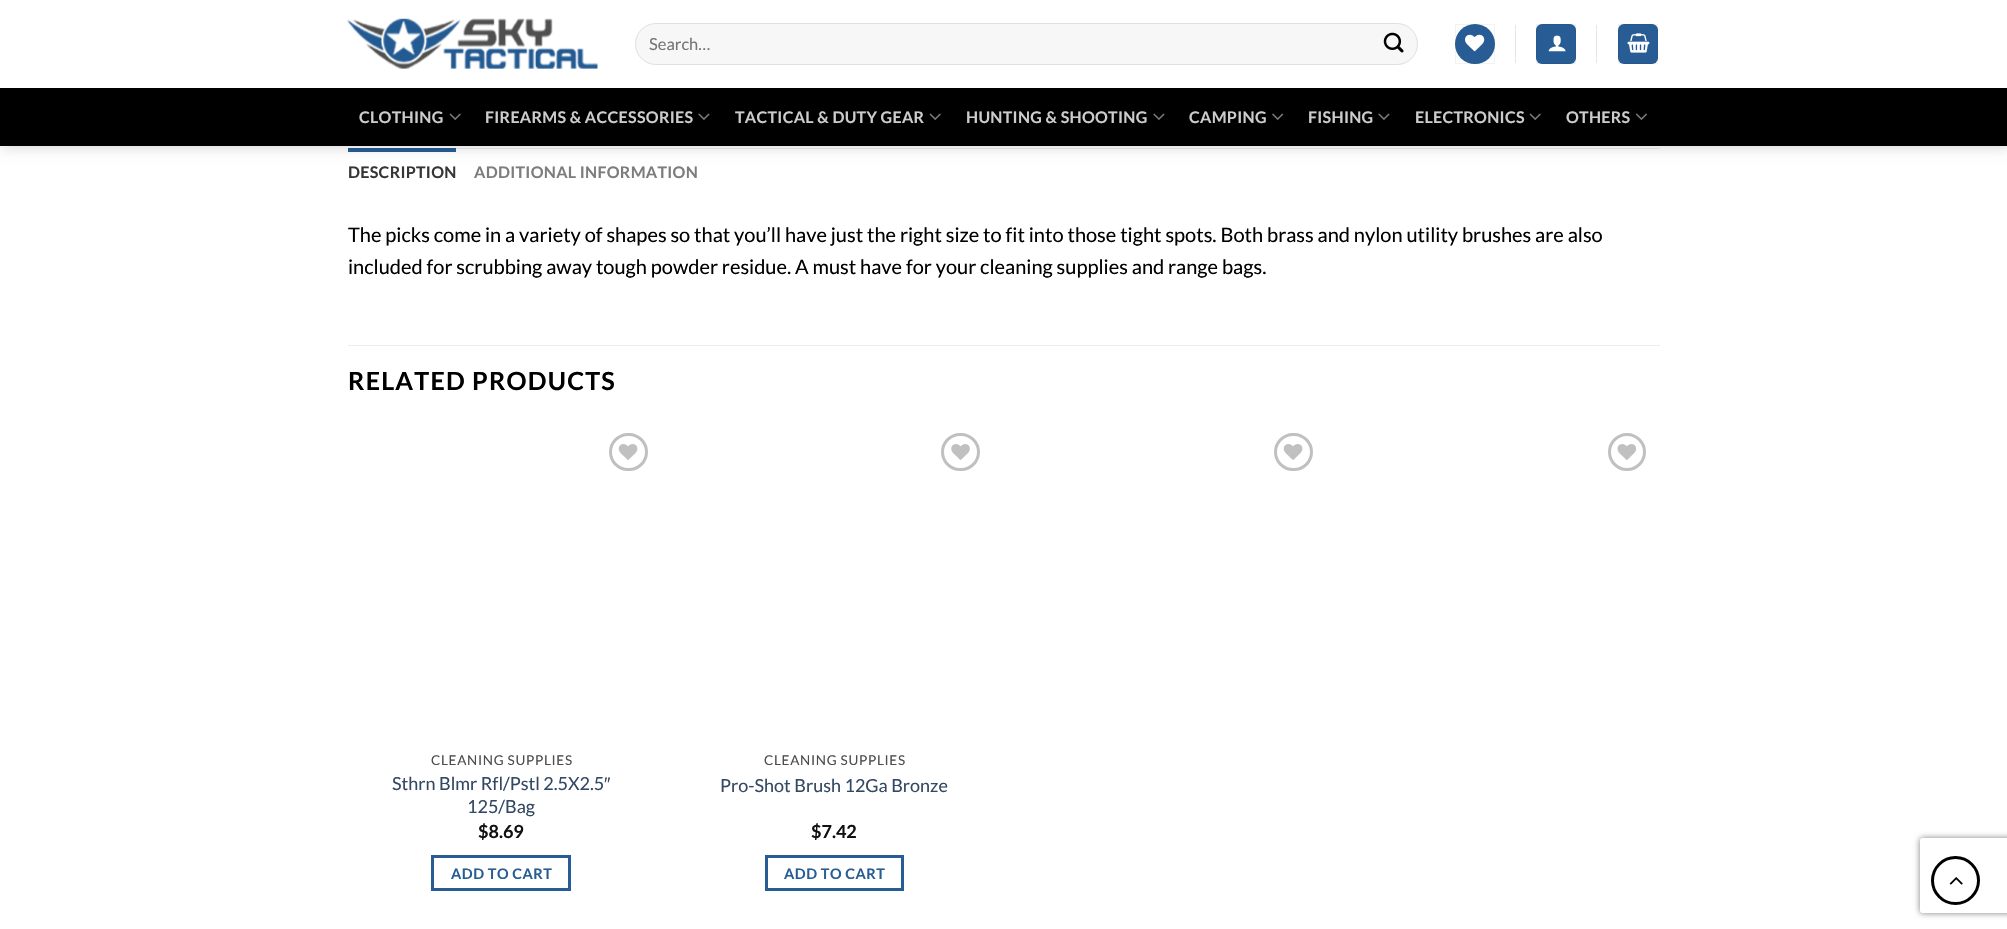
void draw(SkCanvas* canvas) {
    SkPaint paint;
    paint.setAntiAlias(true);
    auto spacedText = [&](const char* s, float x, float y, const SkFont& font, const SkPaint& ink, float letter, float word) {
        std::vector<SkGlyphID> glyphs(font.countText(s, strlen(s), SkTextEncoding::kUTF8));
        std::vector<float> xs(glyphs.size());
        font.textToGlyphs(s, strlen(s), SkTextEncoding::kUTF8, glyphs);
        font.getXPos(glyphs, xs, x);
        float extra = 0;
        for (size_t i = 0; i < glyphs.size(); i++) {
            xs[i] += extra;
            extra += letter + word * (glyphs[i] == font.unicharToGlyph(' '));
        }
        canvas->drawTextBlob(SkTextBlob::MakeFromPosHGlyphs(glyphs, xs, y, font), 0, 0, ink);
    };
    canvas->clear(0xFFFFFFFF);
    paint.setColor(0xFFECECEC);
    canvas->drawRect(SkRect::MakeXYWH(456, 148, 1204, 1), paint);
    paint.setColor(0xFF275D94);
    canvas->drawRect(SkRect::MakeXYWH(348, 148, 108, 4), paint);
    paint.setColor(0x26000000);
    paint.setMaskFilter(SkMaskFilter::MakeBlur(kNormal_SkBlurStyle, 6));
    canvas->drawRect(SkRect::MakeXYWH(1, 1, 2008, 147), paint);
    paint.setMaskFilter(nullptr);
    paint.setColor(0xFFFFFFFF);
    canvas->drawRect(SkRect::MakeXYWH(0, 0, 2007, 88), paint);
    canvas->drawImageRect(SkImages::DeferredFromEncodedData(SkData::MakeFromFileName("img1.png")), SkRect::MakeXYWH(347, 18, 251, 51), SkSamplingOptions());
    paint.setColor(0xFFF7F7F7);
    canvas->drawRoundRect(SkRect::MakeXYWH(635, 23, 783, 42), 21, 21, paint);
    paint.setStyle(SkPaint::kStroke_Style);
    paint.setStrokeWidth(1);
    paint.setColor(0x17000000);
    canvas->drawRoundRect(SkRect::MakeXYWH(635.5f, 23.5f, 782, 41), 20.5f, 20.5f, paint);
    SkFont font1(fontMgr->matchFamilyStyle("Lato", SkFontStyle::Normal()), 16.5f);
    font1.setSubpixel(true);
    paint.setStyle(SkPaint::kFill_Style);
    paint.setColor(0xFF757575);
    canvas->drawString("Search…", 649, 50, font1, paint);
    canvas->drawImageRect(SkImages::DeferredFromEncodedData(SkData::MakeFromFileName("img2.png")), SkRect::MakeXYWH(1383, 32, 21, 21), SkSamplingOptions());
    paint.setColor(0xFF275D94);
    canvas->drawCircle(1475, 44, 20, paint);
    paint.setStyle(SkPaint::kStroke_Style);
    paint.setColor(0x0D000000);
    canvas->drawRect(SkRect::MakeXYWH(1455.5f, 24.5f, 39, 39), paint);
    canvas->drawImageRect(SkImages::DeferredFromEncodedData(SkData::MakeFromFileName("img3.png")), SkRect::MakeXYWH(1465, 34, 20, 18), SkSamplingOptions());
    paint.setStyle(SkPaint::kFill_Style);
    paint.setColor(0xFFE6E6E6);
    canvas->drawRect(SkRect::MakeXYWH(1515, 25, 1, 38), paint);
    paint.setColor(0xFF275D94);
    canvas->drawRoundRect(SkRect::MakeXYWH(1536, 24, 40, 40), 6, 6, paint);
    paint.setStyle(SkPaint::kStroke_Style);
    paint.setColor(0x0D000000);
    canvas->drawRect(SkRect::MakeXYWH(1536.5f, 24.5f, 39, 39), paint);
    canvas->drawImageRect(SkImages::DeferredFromEncodedData(SkData::MakeFromFileName("img4.png")), SkRect::MakeXYWH(1548, 35, 18, 17), SkSamplingOptions());
    paint.setStyle(SkPaint::kFill_Style);
    paint.setColor(0xFFE6E6E6);
    canvas->drawRect(SkRect::MakeXYWH(1596, 25, 1, 38), paint);
    paint.setColor(0xFF275D94);
    canvas->drawRoundRect(SkRect::MakeXYWH(1618, 24, 40, 40), 6, 6, paint);
    paint.setStyle(SkPaint::kStroke_Style);
    paint.setColor(0x0D000000);
    canvas->drawRect(SkRect::MakeXYWH(1618.5f, 24.5f, 39, 39), paint);
    canvas->drawImageRect(SkImages::DeferredFromEncodedData(SkData::MakeFromFileName("img5.png")), SkRect::MakeXYWH(1627, 33, 23, 20), SkSamplingOptions());
    paint.setStyle(SkPaint::kFill_Style);
    paint.setColor(0xFF000000);
    canvas->drawRect(SkRect::MakeXYWH(0, 88, 2007, 58), paint);
    SkFont font2(fontMgr->matchFamilyStyle("Lato", SkFontStyle::Bold()), 16);
    font2.setSubpixel(true);
    paint.setColor(0xFFCCCCCC);
    spacedText("CLOTHING", 359, 123, font2, paint, 0.3f, 0);
    canvas->drawImageRect(SkImages::DeferredFromEncodedData(SkData::MakeFromFileName("img6.png")), SkRect::MakeXYWH(449, 113, 12, 7), SkSamplingOptions());
    spacedText("FIREARMS & ACCESSORIES", 485, 123, font2, paint, 0.3f, 0);
    canvas->drawImageRect(SkImages::DeferredFromEncodedData(SkData::MakeFromFileName("img7.png")), SkRect::MakeXYWH(698, 113, 12, 7), SkSamplingOptions());
    spacedText("TACTICAL & DUTY GEAR", 735, 123, font2, paint, 0.3f, 0);
    canvas->drawImageRect(SkImages::DeferredFromEncodedData(SkData::MakeFromFileName("img6.png")), SkRect::MakeXYWH(929, 113, 12, 7), SkSamplingOptions());
    spacedText("HUNTING & SHOOTING", 966, 123, font2, paint, 0.3f, 0);
    canvas->drawImageRect(SkImages::DeferredFromEncodedData(SkData::MakeFromFileName("img7.png")), SkRect::MakeXYWH(1153, 113, 12, 7), SkSamplingOptions());
    spacedText("CAMPING", 1189, 123, font2, paint, 0.3f, 0);
    canvas->drawImageRect(SkImages::DeferredFromEncodedData(SkData::MakeFromFileName("img8.png")), SkRect::MakeXYWH(1272, 113, 12, 7), SkSamplingOptions());
    spacedText("FISHING", 1308, 123, font2, paint, 0.3f, 0);
    canvas->drawImageRect(SkImages::DeferredFromEncodedData(SkData::MakeFromFileName("img7.png")), SkRect::MakeXYWH(1378, 113, 12, 7), SkSamplingOptions());
    spacedText("ELECTRONICS", 1415, 123, font2, paint, 0.3f, 0);
    canvas->drawImageRect(SkImages::DeferredFromEncodedData(SkData::MakeFromFileName("img6.png")), SkRect::MakeXYWH(1529, 113, 12, 7), SkSamplingOptions());
    spacedText("OTHERS", 1566, 123, font2, paint, 0.3f, 0);
    canvas->drawImageRect(SkImages::DeferredFromEncodedData(SkData::MakeFromFileName("img9.png")), SkRect::MakeXYWH(1636, 113, 11, 7), SkSamplingOptions());
    paint.setColor(0xFF363636);
    spacedText("DESCRIPTION", 348, 178, font2, paint, 0.3f, 0);
    paint.setColor(0xFF7D7D7D);
    spacedText("ADDITIONAL INFORMATION", 474, 178, font2, paint, 0.3f, 0);
    SkFont font3(fontMgr->matchFamilyStyle("Lato", SkFontStyle::Normal()), 20);
    font3.setSubpixel(true);
    paint.setColor(0xFF000000);
    canvas->drawString("The picks come in a variety of shapes so that you’ll have just the right size to fit into those tight spots. Both brass and nylon utility brushes are also", 348, 242, font3, paint);
    canvas->drawString("included for scrubbing away tough powder residue. A must have for your cleaning supplies and range bags.", 348, 274, font3, paint);
    paint.setColor(0xFFECECEC);
    canvas->drawRect(SkRect::MakeXYWH(348, 345, 1312, 1), paint);
    SkFont font4(fontMgr->matchFamilyStyle("Lato", SkFontStyle::Bold()), 25);
    font4.setSubpixel(true);
    paint.setColor(0xFF000000);
    spacedText("RELATED PRODUCTS", 348, 390, font4, paint, 1.25f, 0);
    paint.setStyle(SkPaint::kStroke_Style);
    paint.setStrokeWidth(3);
    paint.setColor(0xFFC0C0C0);
    canvas->drawRoundRect(SkRect::MakeXYWH(1275.5f, 434.5f, 36, 35), 17.5f, 17.5f, paint);
    canvas->drawImageRect(SkImages::DeferredFromEncodedData(SkData::MakeFromFileName("img10.png")), SkRect::MakeXYWH(1283, 444, 20, 16), SkSamplingOptions());
    canvas->drawCircle(1627, 452, 17.5f, paint);
    canvas->drawImageRect(SkImages::DeferredFromEncodedData(SkData::MakeFromFileName("img11.png")), SkRect::MakeXYWH(1617, 444, 20, 16), SkSamplingOptions());
    canvas->drawRoundRect(SkRect::MakeXYWH(610.5f, 434.5f, 36, 35), 17.5f, 17.5f, paint);
    canvas->drawImageRect(SkImages::DeferredFromEncodedData(SkData::MakeFromFileName("img10.png")), SkRect::MakeXYWH(618, 444, 20, 16), SkSamplingOptions());
    SkFont font5(fontMgr->matchFamilyStyle("Lato", SkFontStyle::Normal()), 13.5f);
    font5.setSubpixel(true);
    paint.setStyle(SkPaint::kFill_Style);
    paint.setColor(0xFF4D4D4D);
    spacedText("CLEANING SUPPLIES", 431, 765, font5, paint, 0.7f, 0);
    SkFont font6(fontMgr->matchFamilyStyle("Lato", SkFontStyle::Normal()), 18);
    font6.setSubpixel(true);
    paint.setColor(0xFF334862);
    canvas->drawString("Sthrn Blmr Rfl/Pstl 2.5X2.5", 392, 790, font6, paint);
    SkFont font7(fontMgr->matchFamilyStyle("Liberation Sans", SkFontStyle::Normal()), 18);
    font7.setSubpixel(true);
    canvas->drawString("″", 604, 790, font7, paint);
    canvas->drawString("125/Bag", 467, 813, font6, paint);
    SkFont font8(fontMgr->matchFamilyStyle("Lato", SkFontStyle::Bold()), 18);
    font8.setSubpixel(true);
    paint.setColor(0xFF111111);
    canvas->drawString("$8.69", 478, 838, font8, paint);
    paint.setStyle(SkPaint::kStroke_Style);
    paint.setColor(0xFF275D94);
    canvas->drawRect(SkRect::MakeXYWH(432.5f, 856.5f, 137, 33), paint);
    SkFont font9(fontMgr->matchFamilyStyle("Lato", SkFontStyle::Bold()), 14.5f);
    font9.setSubpixel(true);
    paint.setStyle(SkPaint::kFill_Style);
    spacedText("ADD TO CART", 451, 879, font9, paint, 0.5f, 0);
    paint.setStyle(SkPaint::kStroke_Style);
    paint.setColor(0xFFC0C0C0);
    canvas->drawRoundRect(SkRect::MakeXYWH(942.5f, 434.5f, 36, 35), 17.5f, 17.5f, paint);
    canvas->drawImageRect(SkImages::DeferredFromEncodedData(SkData::MakeFromFileName("img12.png")), SkRect::MakeXYWH(951, 444, 19, 16), SkSamplingOptions());
    paint.setStyle(SkPaint::kFill_Style);
    paint.setColor(0xFF4D4D4D);
    spacedText("CLEANING SUPPLIES", 764, 765, font5, paint, 0.7f, 0);
    paint.setColor(0xFF334862);
    canvas->drawString("Pro-Shot Brush 12Ga Bronze", 720, 792, font6, paint);
    paint.setColor(0xFF111111);
    canvas->drawString("$7.42", 811, 838, font8, paint);
    paint.setStyle(SkPaint::kStroke_Style);
    paint.setColor(0xFF275D94);
    canvas->drawRect(SkRect::MakeXYWH(766.5f, 856.5f, 136, 33), paint);
    paint.setStyle(SkPaint::kFill_Style);
    spacedText("ADD TO CART", 784, 879, font9, paint, 0.5f, 0);
    canvas->save();
    canvas->clipPath(SkPathBuilder(SkPathFillType::kEvenOdd).moveTo(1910, 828).lineTo(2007, 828).lineTo(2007, 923).lineTo(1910, 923).close().moveTo(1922.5f, 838).lineTo(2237.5f, 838).cubicTo(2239, 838, 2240, 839, 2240, 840.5f).lineTo(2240, 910.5f).cubicTo(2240, 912, 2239, 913, 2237.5f, 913).lineTo(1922.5f, 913).cubicTo(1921, 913, 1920, 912, 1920, 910.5f).lineTo(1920, 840.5f).cubicTo(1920, 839, 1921, 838, 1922.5f, 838).close().detach(), true);
    paint.setColor(0xFF808080);
    paint.setMaskFilter(SkMaskFilter::MakeBlur(kNormal_SkBlurStyle, 3));
    canvas->drawRoundRect(SkRect::MakeXYWH(1920, 838, 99, 75), 2.5f, 2.5f, paint);
    paint.setMaskFilter(nullptr);
    canvas->restore();
    paint.setStyle(SkPaint::kStroke_Style);
    paint.setColor(0xFF000000);
    canvas->drawCircle(1955.5f, 880.5f, 23, paint);
    canvas->drawImageRect(SkImages::DeferredFromEncodedData(SkData::MakeFromFileName("img13.png")), SkRect::MakeXYWH(1949, 877, 14, 8), SkSamplingOptions());
}
